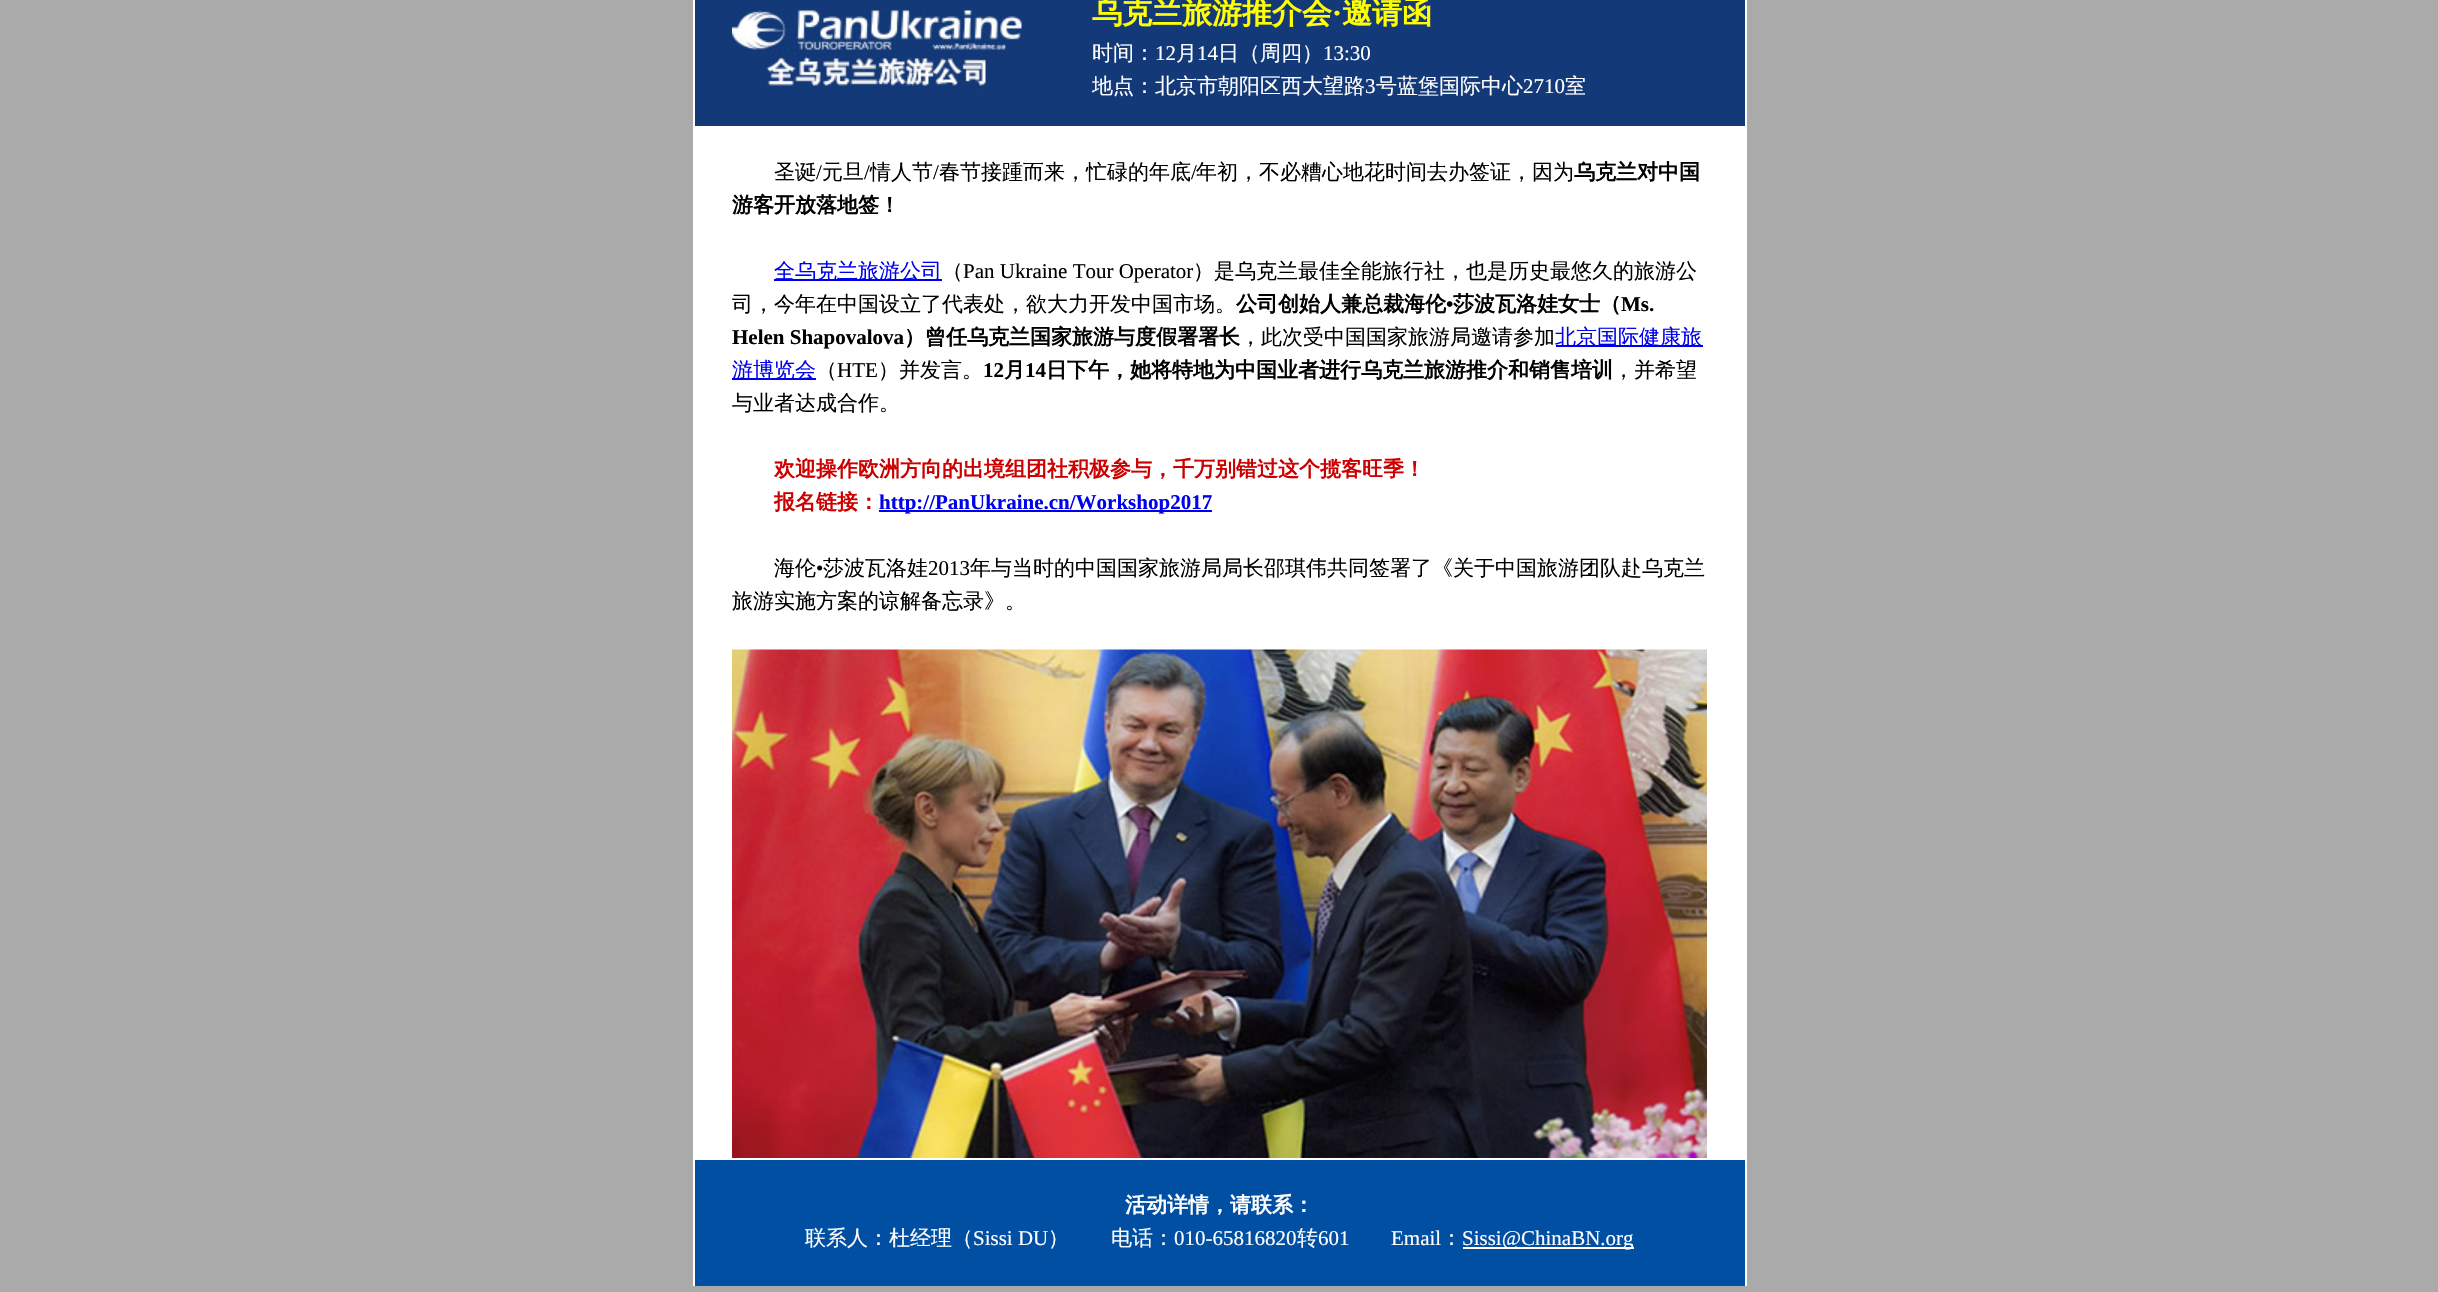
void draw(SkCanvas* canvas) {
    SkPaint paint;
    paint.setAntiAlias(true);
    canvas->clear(0xFFAAAAAA);
    paint.setColor(0xFFFFFFFF);
    canvas->drawRect(SkRect::MakeXYWH(693, 0, 1054, 1286), paint);
    paint.setColor(0xFF133978);
    canvas->drawRect(SkRect::MakeXYWH(695, 0, 1050, 126), paint);
    canvas->drawImageRect(SkImages::DeferredFromEncodedData(SkData::MakeFromFileName("img1.png")), SkRect::MakeXYWH(732, 10, 290, 79), SkSamplingOptions());
    SkFont font1(fontMgr->matchFamilyStyle("WenQuanYi Zen Hei", SkFontStyle::Bold()), 30);
    font1.setSubpixel(true);
    paint.setColor(0xFFFFFF00);
    canvas->drawString("乌克兰旅游推介会", 1092, 23, font1, paint);
    SkFont font2(fontMgr->matchFamilyStyle("Liberation Serif", SkFontStyle::Bold()), 30);
    font2.setSubpixel(true);
    canvas->drawString("·", 1332, 23, font2, paint);
    canvas->drawString("邀请函", 1342, 23, font1, paint);
    SkFont font3(fontMgr->matchFamilyStyle("WenQuanYi Zen Hei", SkFontStyle(500, SkFontStyle::kNormal_Width, SkFontStyle::kUpright_Slant)), 21);
    font3.setSubpixel(true);
    paint.setColor(0xFFFFFFFF);
    canvas->drawString("时间：", 1092, 60, font3, paint);
    SkFont font4(fontMgr->matchFamilyStyle("Liberation Serif", SkFontStyle::Normal()), 21);
    font4.setSubpixel(true);
    canvas->drawString("12", 1155, 60, font4, paint);
    canvas->drawString("月", 1176, 60, font3, paint);
    canvas->drawString("14", 1197, 60, font4, paint);
    canvas->drawString("日（周四）", 1218, 60, font3, paint);
    canvas->drawString("13:30", 1323, 60, font4, paint);
    canvas->drawString("地点：北京市朝阳区西大望路", 1092, 93, font3, paint);
    canvas->drawString("3", 1365, 93, font4, paint);
    canvas->drawString("号蓝堡国际中心", 1376, 93, font3, paint);
    canvas->drawString("2710", 1523, 93, font4, paint);
    canvas->drawString("室", 1565, 93, font3, paint);
    paint.setColor(0xFF000000);
    canvas->drawString("圣诞", 774, 179, font3, paint);
    canvas->drawString("/", 816, 179, font4, paint);
    canvas->drawString("元旦", 822, 179, font3, paint);
    canvas->drawString("/", 864, 179, font4, paint);
    canvas->drawString("情人节", 870, 179, font3, paint);
    canvas->drawString("/", 933, 179, font4, paint);
    canvas->drawString("春节接踵而来，忙碌的年底", 939, 179, font3, paint);
    canvas->drawString("/", 1191, 179, font4, paint);
    canvas->drawString("年初，不必糟心地花时间去办签证，因为", 1196, 179, font3, paint);
    SkFont font5(fontMgr->matchFamilyStyle("WenQuanYi Zen Hei", SkFontStyle::Bold()), 21);
    font5.setSubpixel(true);
    canvas->drawString("乌克兰对中国", 1574, 179, font5, paint);
    canvas->drawString("游客开放落地签！", 732, 212, font5, paint);
    paint.setColor(0xFF0000EE);
    canvas->drawRect(SkRect::MakeXYWH(774, 279, 168, 2), paint);
    canvas->drawString("全乌克兰旅游公司", 774, 278, font3, paint);
    paint.setColor(0xFF000000);
    canvas->drawString("（", 942, 278, font3, paint);
    canvas->drawString("Pan Ukraine Tour Operator", 963, 278, font4, paint);
    canvas->drawString("）是乌克兰最佳全能旅行社，也是历史最悠久的旅游公", 1193, 278, font3, paint);
    canvas->drawString("司，今年在中国设立了代表处，欲大力开发中国市场。", 732, 311, font3, paint);
    canvas->drawString("公司创始人兼总裁海伦", 1236, 311, font5, paint);
    SkFont font6(fontMgr->matchFamilyStyle("Liberation Serif", SkFontStyle::Bold()), 21);
    font6.setSubpixel(true);
    canvas->drawString("•", 1446, 311, font6, paint);
    canvas->drawString("莎波瓦洛娃女士（", 1453, 311, font5, paint);
    canvas->drawString("Ms.", 1621, 311, font6, paint);
    canvas->drawString("Helen Shapovalova", 732, 344, font6, paint);
    canvas->drawString("）曾任乌克兰国家旅游与度假署署长", 904, 344, font5, paint);
    canvas->drawString("，此次受中国国家旅游局邀请参加", 1240, 344, font3, paint);
    paint.setColor(0xFF0000EE);
    canvas->drawRect(SkRect::MakeXYWH(1556, 345, 147, 2), paint);
    canvas->drawString("北京国际健康旅", 1555, 344, font3, paint);
    canvas->drawRect(SkRect::MakeXYWH(732, 378, 84, 2), paint);
    canvas->drawString("游博览会", 732, 377, font3, paint);
    paint.setColor(0xFF000000);
    canvas->drawString("（", 816, 377, font3, paint);
    canvas->drawString("HTE", 837, 377, font4, paint);
    canvas->drawString("）并发言。", 878, 377, font3, paint);
    canvas->drawString("12", 983, 377, font6, paint);
    canvas->drawString("月", 1004, 377, font5, paint);
    canvas->drawString("14", 1025, 377, font6, paint);
    canvas->drawString("日下午，她将特地为中国业者进行乌克兰旅游推介和销售培训", 1046, 377, font5, paint);
    canvas->drawString("，并希望", 1613, 377, font3, paint);
    canvas->drawString("与业者达成合作。", 732, 410, font3, paint);
    paint.setColor(0xFFCC0000);
    canvas->drawString("欢迎操作欧洲方向的出境组团社积极参与，千万别错过这个揽客旺季！", 774, 476, font5, paint);
    canvas->drawString("报名链接：", 774, 509, font5, paint);
    paint.setColor(0xFF0000EE);
    canvas->drawRect(SkRect::MakeXYWH(879, 510, 333, 2), paint);
    canvas->drawString("http://PanUkraine.cn/Workshop2017", 879, 509, font6, paint);
    paint.setColor(0xFF000000);
    canvas->drawString("海伦", 774, 575, font3, paint);
    canvas->drawString("•", 816, 575, font4, paint);
    canvas->drawString("莎波瓦洛娃", 823, 575, font3, paint);
    canvas->drawString("2013", 928, 575, font4, paint);
    canvas->drawString("年与当时的中国国家旅游局局长邵琪伟共同签署了《关于中国旅游团队赴乌克兰", 970, 575, font3, paint);
    canvas->drawString("旅游实施方案的谅解备忘录》。", 732, 608, font3, paint);
    canvas->drawImageRect(SkImages::DeferredFromEncodedData(SkData::MakeFromFileName("img2.png")), SkRect::MakeXYWH(732, 649, 975, 509), SkSamplingOptions());
    paint.setColor(0xFF004FA2);
    canvas->drawRect(SkRect::MakeXYWH(695, 1160, 1050, 126), paint);
    paint.setColor(0xFFFFFFFF);
    canvas->drawString("活动详情，请联系：", 1125, 1212, font5, paint);
    canvas->drawString("联系人：杜经理（", 805, 1245, font3, paint);
    canvas->drawString("Sissi DU", 973, 1245, font4, paint);
    canvas->drawString("）　　电话：", 1048, 1245, font3, paint);
    canvas->drawString("010-65816820", 1174, 1245, font4, paint);
    canvas->drawString("转", 1297, 1245, font3, paint);
    canvas->drawString("601", 1318, 1245, font4, paint);
    canvas->drawString("Email", 1391, 1245, font4, paint);
    canvas->drawString("：", 1441, 1245, font3, paint);
    canvas->drawRect(SkRect::MakeXYWH(1463, 1247, 171, 2), paint);
    canvas->drawString("Sissi@ChinaBN.org", 1462, 1245, font4, paint);
}
